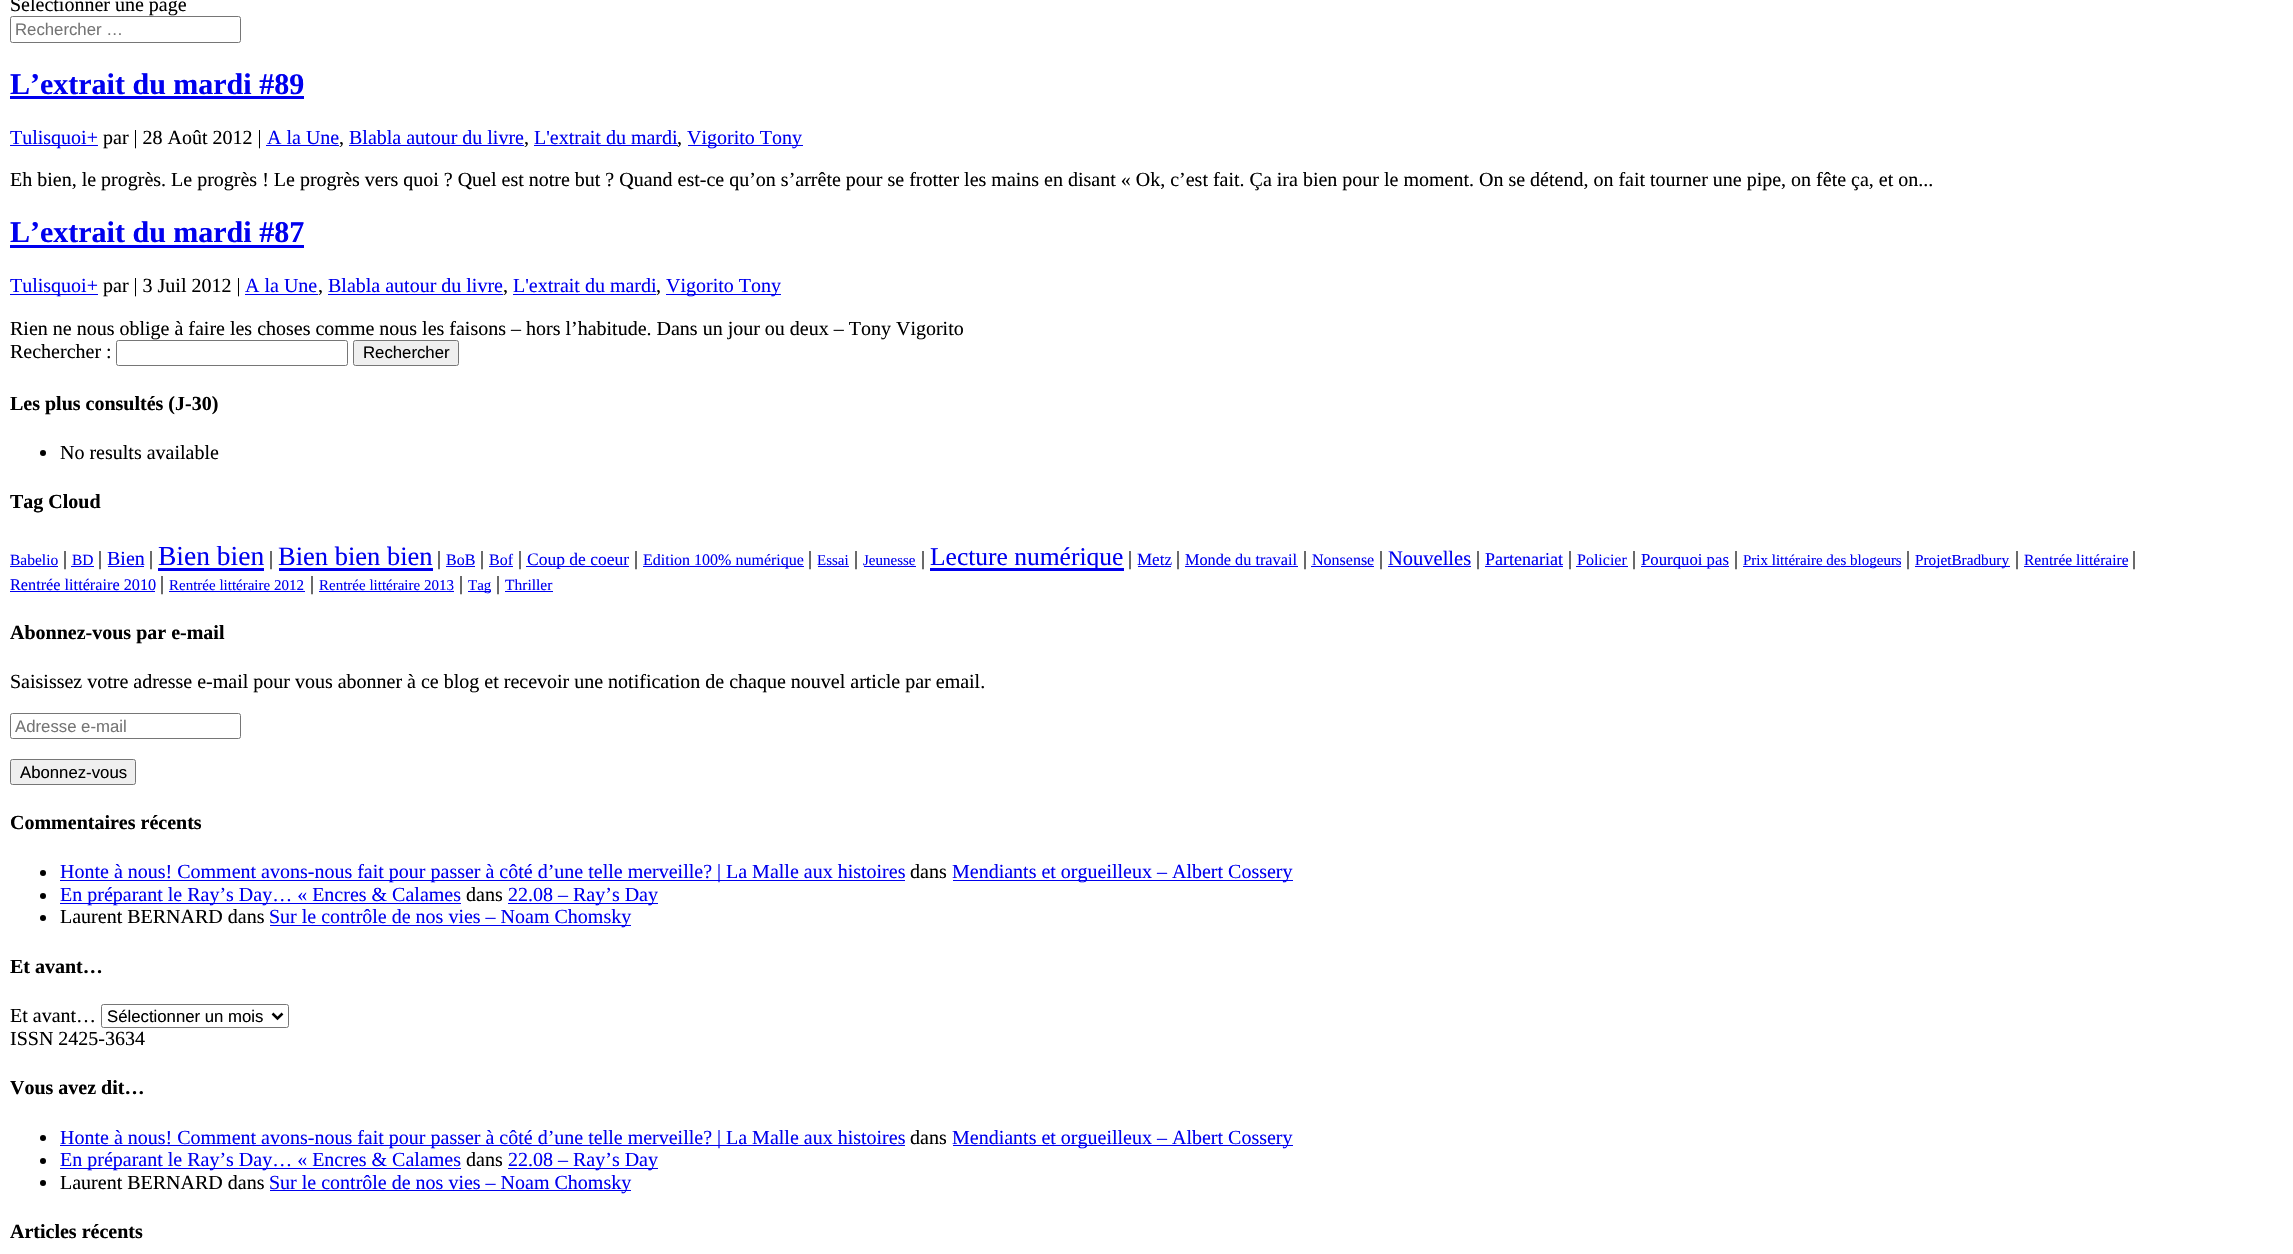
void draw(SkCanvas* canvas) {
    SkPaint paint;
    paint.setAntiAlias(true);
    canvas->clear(0xFFFFFFFF);
    SkFont font1(fontMgr->matchFamilyStyle("Liberation Serif", SkFontStyle::Normal()), 20);
    font1.setSubpixel(true);
    paint.setColor(0xFF000000);
    canvas->drawString("Sélectionner une page", 10, 11, font1, paint);
    paint.setStyle(SkPaint::kStroke_Style);
    paint.setStrokeWidth(1);
    paint.setColor(0xFF767676);
    canvas->drawRoundRect(SkRect::MakeXYWH(10.5f, 16.5f, 230, 26), 2, 2, paint);
    SkFont font2(fontMgr->matchFamilyStyle("Liberation Sans", SkFontStyle::Normal()), 16.75f);
    font2.setSubpixel(true);
    paint.setStyle(SkPaint::kFill_Style);
    paint.setColor(0xFF757575);
    canvas->drawString("Rechercher …", 15, 35, font2, paint);
    SkFont font3(fontMgr->matchFamilyStyle("Liberation Serif", SkFontStyle::Bold()), 30);
    font3.setSubpixel(true);
    paint.setColor(0xFF0000EE);
    canvas->drawString("L’extrait du mardi #89", 10, 94, font3, paint);
    canvas->drawRect(SkRect::MakeXYWH(10, 96, 294, 3), paint);
    canvas->drawRect(SkRect::MakeXYWH(10, 145, 76, 1), paint);
    canvas->drawString("Tulisquoi+", 10, 144, font1, paint);
    paint.setColor(0xFF000000);
    canvas->drawString("par | 28 Août 2012 |", 103, 144, font1, paint);
    paint.setColor(0xFF0000EE);
    canvas->drawString("A la Une", 267, 144, font1, paint);
    canvas->drawRect(SkRect::MakeXYWH(266, 145, 73, 1), paint);
    paint.setColor(0xFF000000);
    canvas->drawString(",", 339, 144, font1, paint);
    paint.setColor(0xFF0000EE);
    canvas->drawString("Blabla autour du livre", 349, 144, font1, paint);
    canvas->drawRect(SkRect::MakeXYWH(349, 145, 175, 1), paint);
    paint.setColor(0xFF000000);
    canvas->drawString(",", 524, 144, font1, paint);
    paint.setColor(0xFF0000EE);
    canvas->drawString("L'extrait du mardi", 534, 144, font1, paint);
    canvas->drawRect(SkRect::MakeXYWH(534, 145, 144, 1), paint);
    paint.setColor(0xFF000000);
    canvas->drawString(",", 677, 144, font1, paint);
    paint.setColor(0xFF0000EE);
    canvas->drawRect(SkRect::MakeXYWH(688, 145, 115, 1), paint);
    canvas->drawString("Vigorito Tony", 687, 144, font1, paint);
    canvas->drawRect(SkRect::MakeXYWH(86, 145, 12, 1), paint);
    paint.setColor(0xFF000000);
    canvas->drawString("Eh bien, le progrès. Le progrès ! Le progrès vers quoi ? Quel est notre but ? Quand est-ce qu’on s’arrête pour se frotter les mains en disant « Ok, c’est fait. Ça ira bien pour le moment. On se détend, on fait tourner une pipe, on fête ça, et on...", 10, 186, font1, paint);
    paint.setColor(0xFF0000EE);
    canvas->drawString("L’extrait du mardi #87", 10, 242, font3, paint);
    canvas->drawRect(SkRect::MakeXYWH(10, 245, 294, 3), paint);
    canvas->drawRect(SkRect::MakeXYWH(10, 294, 76, 1), paint);
    canvas->drawString("Tulisquoi+", 10, 292, font1, paint);
    paint.setColor(0xFF000000);
    canvas->drawString("par | 3 Juil 2012 |", 103, 292, font1, paint);
    paint.setColor(0xFF0000EE);
    canvas->drawString("A la Une", 245, 292, font1, paint);
    canvas->drawRect(SkRect::MakeXYWH(245, 294, 73, 1), paint);
    paint.setColor(0xFF000000);
    canvas->drawString(",", 318, 292, font1, paint);
    paint.setColor(0xFF0000EE);
    canvas->drawString("Blabla autour du livre", 328, 292, font1, paint);
    canvas->drawRect(SkRect::MakeXYWH(328, 294, 175, 1), paint);
    paint.setColor(0xFF000000);
    canvas->drawString(",", 503, 292, font1, paint);
    paint.setColor(0xFF0000EE);
    canvas->drawString("L'extrait du mardi", 513, 292, font1, paint);
    canvas->drawRect(SkRect::MakeXYWH(513, 294, 143, 1), paint);
    paint.setColor(0xFF000000);
    canvas->drawString(",", 656, 292, font1, paint);
    paint.setColor(0xFF0000EE);
    canvas->drawRect(SkRect::MakeXYWH(666, 294, 115, 1), paint);
    canvas->drawString("Vigorito Tony", 666, 292, font1, paint);
    canvas->drawRect(SkRect::MakeXYWH(86, 294, 12, 1), paint);
    paint.setColor(0xFF000000);
    canvas->drawString("Rien ne nous oblige à faire les choses comme nous les faisons – hors l’habitude. Dans un jour ou deux – Tony Vigorito", 10, 335, font1, paint);
    canvas->drawString("Rechercher :", 10, 358, font1, paint);
    paint.setStyle(SkPaint::kStroke_Style);
    paint.setColor(0xFF767676);
    canvas->drawRoundRect(SkRect::MakeXYWH(116.5f, 340.5f, 231, 25), 2, 2, paint);
    paint.setStyle(SkPaint::kFill_Style);
    paint.setColor(0xFFEFEFEF);
    canvas->drawRoundRect(SkRect::MakeXYWH(353.5f, 340.5f, 105, 25), 2, 2, paint);
    paint.setStyle(SkPaint::kStroke_Style);
    paint.setColor(0xFF767676);
    canvas->drawRoundRect(SkRect::MakeXYWH(353.5f, 340.5f, 105, 25), 2, 2, paint);
    paint.setStyle(SkPaint::kFill_Style);
    paint.setColor(0xFF000000);
    canvas->drawString("Rechercher", 363, 358, font2, paint);
    SkFont font4(fontMgr->matchFamilyStyle("Liberation Serif", SkFontStyle::Bold()), 20);
    font4.setSubpixel(true);
    canvas->drawString("Les plus consultés (J-30)", 10, 410, font4, paint);
    canvas->drawCircle(43, 453, 3, paint);
    canvas->drawString("No results available", 60, 459, font1, paint);
    canvas->drawString("Tag Cloud", 10, 508, font4, paint);
    SkFont font5(fontMgr->matchFamilyStyle("Liberation Serif", SkFontStyle::Normal()), 15.5f);
    font5.setSubpixel(true);
    paint.setColor(0xFF0000EE);
    canvas->drawString("Babelio", 10, 565, font5, paint);
    canvas->drawRect(SkRect::MakeXYWH(10, 566, 48, 1), paint);
    paint.setColor(0xFF000000);
    canvas->drawString("|", 63, 565, font1, paint);
    paint.setColor(0xFF0000EE);
    canvas->drawString("BD", 72, 565, font5, paint);
    canvas->drawRect(SkRect::MakeXYWH(71, 566, 23, 1), paint);
    paint.setColor(0xFF000000);
    canvas->drawString("|", 98, 565, font1, paint);
    paint.setColor(0xFF0000EE);
    canvas->drawString("Bien", 107, 565, font1, paint);
    canvas->drawRect(SkRect::MakeXYWH(108, 566, 36, 1), paint);
    paint.setColor(0xFF000000);
    canvas->drawString("|", 149, 565, font1, paint);
    SkFont font6(fontMgr->matchFamilyStyle("Liberation Serif", SkFontStyle::Normal()), 27.5f);
    font6.setSubpixel(true);
    paint.setColor(0xFF0000EE);
    canvas->drawString("Bien bien", 158, 565, font6, paint);
    canvas->drawRect(SkRect::MakeXYWH(158, 568, 106, 3), paint);
    paint.setColor(0xFF000000);
    canvas->drawString("|", 269, 565, font1, paint);
    SkFont font7(fontMgr->matchFamilyStyle("Liberation Serif", SkFontStyle::Normal()), 26.5f);
    font7.setSubpixel(true);
    paint.setColor(0xFF0000EE);
    canvas->drawString("Bien bien bien", 278, 565, font7, paint);
    canvas->drawRect(SkRect::MakeXYWH(279, 568, 154, 3), paint);
    paint.setColor(0xFF000000);
    canvas->drawString("|", 437, 565, font1, paint);
    SkFont font8(fontMgr->matchFamilyStyle("Liberation Serif", SkFontStyle::Normal()), 16);
    font8.setSubpixel(true);
    paint.setColor(0xFF0000EE);
    canvas->drawString("BoB", 446, 565, font8, paint);
    canvas->drawRect(SkRect::MakeXYWH(446, 566, 29, 1), paint);
    paint.setColor(0xFF000000);
    canvas->drawString("|", 480, 565, font1, paint);
    paint.setColor(0xFF0000EE);
    canvas->drawString("Bof", 489, 565, font8, paint);
    canvas->drawRect(SkRect::MakeXYWH(489, 566, 24, 1), paint);
    paint.setColor(0xFF000000);
    canvas->drawString("|", 518, 565, font1, paint);
    paint.setColor(0xFF0000EE);
    canvas->drawRect(SkRect::MakeXYWH(526, 566, 103, 1), paint);
    SkFont font9(fontMgr->matchFamilyStyle("Liberation Serif", SkFontStyle::Normal()), 17.5f);
    font9.setSubpixel(true);
    canvas->drawString("Coup de coeur", 527, 565, font9, paint);
    paint.setColor(0xFF000000);
    canvas->drawString("|", 634, 565, font1, paint);
    paint.setColor(0xFF0000EE);
    canvas->drawRect(SkRect::MakeXYWH(643, 566, 161, 1), paint);
    canvas->drawString("Edition 100% numérique", 643, 565, font8, paint);
    paint.setColor(0xFF000000);
    canvas->drawString("|", 808, 565, font1, paint);
    SkFont font10(fontMgr->matchFamilyStyle("Liberation Serif", SkFontStyle::Normal()), 15);
    font10.setSubpixel(true);
    paint.setColor(0xFF0000EE);
    canvas->drawString("Essai", 817, 565, font10, paint);
    canvas->drawRect(SkRect::MakeXYWH(818, 566, 31, 1), paint);
    paint.setColor(0xFF000000);
    canvas->drawString("|", 854, 565, font1, paint);
    paint.setColor(0xFF0000EE);
    canvas->drawString("Jeunesse", 863, 565, font10, paint);
    canvas->drawRect(SkRect::MakeXYWH(864, 566, 52, 1), paint);
    paint.setColor(0xFF000000);
    canvas->drawString("|", 921, 565, font1, paint);
    paint.setColor(0xFF0000EE);
    canvas->drawRect(SkRect::MakeXYWH(930, 568, 194, 3), paint);
    SkFont font11(fontMgr->matchFamilyStyle("Liberation Serif", SkFontStyle::Normal()), 25.5f);
    font11.setSubpixel(true);
    canvas->drawString("Lecture numérique", 930, 565, font11, paint);
    paint.setColor(0xFF000000);
    canvas->drawString("|", 1128, 565, font1, paint);
    SkFont font12(fontMgr->matchFamilyStyle("Liberation Serif", SkFontStyle::Normal()), 17);
    font12.setSubpixel(true);
    paint.setColor(0xFF0000EE);
    canvas->drawString("Metz", 1137, 565, font12, paint);
    canvas->drawRect(SkRect::MakeXYWH(1138, 566, 33, 1), paint);
    paint.setColor(0xFF000000);
    canvas->drawString("|", 1176, 565, font1, paint);
    SkFont font13(fontMgr->matchFamilyStyle("Liberation Serif", SkFontStyle::Normal()), 16.25f);
    font13.setSubpixel(true);
    paint.setColor(0xFF0000EE);
    canvas->drawString("Monde du travail", 1185, 565, font13, paint);
    canvas->drawRect(SkRect::MakeXYWH(1185, 566, 113, 1), paint);
    paint.setColor(0xFF000000);
    canvas->drawString("|", 1303, 565, font1, paint);
    paint.setColor(0xFF0000EE);
    canvas->drawString("Nonsense", 1312, 565, font8, paint);
    canvas->drawRect(SkRect::MakeXYWH(1311, 566, 63, 1), paint);
    paint.setColor(0xFF000000);
    canvas->drawString("|", 1379, 565, font1, paint);
    SkFont font14(fontMgr->matchFamilyStyle("Liberation Serif", SkFontStyle::Normal()), 20.5f);
    font14.setSubpixel(true);
    paint.setColor(0xFF0000EE);
    canvas->drawString("Nouvelles", 1388, 565, font14, paint);
    canvas->drawRect(SkRect::MakeXYWH(1388, 566, 83, 1), paint);
    paint.setColor(0xFF000000);
    canvas->drawString("|", 1476, 565, font1, paint);
    SkFont font15(fontMgr->matchFamilyStyle("Liberation Serif", SkFontStyle::Normal()), 18);
    font15.setSubpixel(true);
    paint.setColor(0xFF0000EE);
    canvas->drawString("Partenariat", 1485, 565, font15, paint);
    canvas->drawRect(SkRect::MakeXYWH(1485, 566, 78, 1), paint);
    paint.setColor(0xFF000000);
    canvas->drawString("|", 1568, 565, font1, paint);
    paint.setColor(0xFF0000EE);
    canvas->drawString("Policier", 1577, 565, font8, paint);
    canvas->drawRect(SkRect::MakeXYWH(1576, 566, 52, 1), paint);
    paint.setColor(0xFF000000);
    canvas->drawString("|", 1632, 565, font1, paint);
    paint.setColor(0xFF0000EE);
    canvas->drawRect(SkRect::MakeXYWH(1641, 566, 88, 1), paint);
    SkFont font16(fontMgr->matchFamilyStyle("Liberation Serif", SkFontStyle::Normal()), 16.75f);
    font16.setSubpixel(true);
    canvas->drawString("Pourquoi pas", 1641, 565, font16, paint);
    paint.setColor(0xFF000000);
    canvas->drawString("|", 1734, 565, font1, paint);
    paint.setColor(0xFF0000EE);
    canvas->drawRect(SkRect::MakeXYWH(1743, 566, 158, 1), paint);
    canvas->drawString("Prix littéraire des blogeurs", 1743, 565, font10, paint);
    paint.setColor(0xFF000000);
    canvas->drawString("|", 1906, 565, font1, paint);
    paint.setColor(0xFF0000EE);
    canvas->drawRect(SkRect::MakeXYWH(1915, 566, 95, 1), paint);
    SkFont font17(fontMgr->matchFamilyStyle("Liberation Serif", SkFontStyle::Normal()), 15.25f);
    font17.setSubpixel(true);
    canvas->drawString("ProjetBradbury", 1915, 565, font17, paint);
    paint.setColor(0xFF000000);
    canvas->drawString("|", 2015, 565, font1, paint);
    paint.setColor(0xFF0000EE);
    canvas->drawString("Rentrée littéraire", 2024, 565, font5, paint);
    canvas->drawRect(SkRect::MakeXYWH(2024, 566, 104, 1), paint);
    paint.setColor(0xFF000000);
    canvas->drawString("|", 2132, 565, font1, paint);
    paint.setColor(0xFF0000EE);
    canvas->drawString("Rentrée littéraire 2010", 10, 590, font13, paint);
    canvas->drawRect(SkRect::MakeXYWH(10, 591, 145, 1), paint);
    paint.setColor(0xFF000000);
    canvas->drawString("|", 160, 590, font1, paint);
    paint.setColor(0xFF0000EE);
    canvas->drawString("Rentrée littéraire 2012", 169, 590, font10, paint);
    canvas->drawRect(SkRect::MakeXYWH(169, 591, 136, 1), paint);
    paint.setColor(0xFF000000);
    canvas->drawString("|", 310, 590, font1, paint);
    paint.setColor(0xFF0000EE);
    canvas->drawString("Rentrée littéraire 2013", 319, 590, font10, paint);
    canvas->drawRect(SkRect::MakeXYWH(319, 591, 135, 1), paint);
    paint.setColor(0xFF000000);
    canvas->drawString("|", 459, 590, font1, paint);
    paint.setColor(0xFF0000EE);
    canvas->drawRect(SkRect::MakeXYWH(468, 591, 23, 1), paint);
    canvas->drawString("Tag", 468, 590, font10, paint);
    paint.setColor(0xFF000000);
    canvas->drawString("|", 496, 590, font1, paint);
    paint.setColor(0xFF0000EE);
    canvas->drawString("Thriller", 505, 590, font5, paint);
    canvas->drawRect(SkRect::MakeXYWH(505, 591, 48, 1), paint);
    paint.setColor(0xFF000000);
    canvas->drawString("Abonnez-vous par e-mail", 10, 639, font4, paint);
    canvas->drawString("Saisissez votre adresse e-mail pour vous abonner à ce blog et recevoir une notification de chaque nouvel article par email.", 10, 688, font1, paint);
    paint.setStyle(SkPaint::kStroke_Style);
    paint.setColor(0xFF767676);
    canvas->drawRoundRect(SkRect::MakeXYWH(10.5f, 713.5f, 230, 25), 2, 2, paint);
    paint.setStyle(SkPaint::kFill_Style);
    paint.setColor(0xFF757575);
    canvas->drawString("Adresse e-mail", 15, 732, font2, paint);
    paint.setColor(0xFFEFEFEF);
    canvas->drawRoundRect(SkRect::MakeXYWH(10.5f, 759.5f, 125, 25), 2, 2, paint);
    paint.setStyle(SkPaint::kStroke_Style);
    paint.setColor(0xFF767676);
    canvas->drawRoundRect(SkRect::MakeXYWH(10.5f, 759.5f, 125, 25), 2, 2, paint);
    paint.setStyle(SkPaint::kFill_Style);
    paint.setColor(0xFF000000);
    canvas->drawString("Abonnez-vous", 20, 778, font2, paint);
    canvas->drawString("Commentaires récents", 10, 829, font4, paint);
    canvas->drawCircle(43, 873, 3, paint);
    paint.setColor(0xFF0000EE);
    canvas->drawRect(SkRect::MakeXYWH(60, 880, 845, 1), paint);
    canvas->drawString("Honte à nous! Comment avons-nous fait pour passer à côté d’une telle merveille? | La Malle aux histoires", 60, 878, font1, paint);
    paint.setColor(0xFF000000);
    canvas->drawString("dans", 910, 878, font1, paint);
    paint.setColor(0xFF0000EE);
    canvas->drawRect(SkRect::MakeXYWH(953, 880, 340, 1), paint);
    canvas->drawString("Mendiants et orgueilleux – Albert Cossery", 952, 878, font1, paint);
    paint.setColor(0xFF000000);
    canvas->drawCircle(43, 896, 3, paint);
    paint.setColor(0xFF0000EE);
    canvas->drawRect(SkRect::MakeXYWH(60, 903, 401, 1), paint);
    canvas->drawString("En préparant le Ray’s Day… « Encres & Calames", 60, 901, font1, paint);
    paint.setColor(0xFF000000);
    canvas->drawString("dans", 466, 901, font1, paint);
    paint.setColor(0xFF0000EE);
    canvas->drawRect(SkRect::MakeXYWH(508, 903, 150, 1), paint);
    canvas->drawString("22.08 – Ray’s Day", 508, 901, font1, paint);
    paint.setColor(0xFF000000);
    canvas->drawCircle(43, 918, 3, paint);
    canvas->drawString("Laurent BERNARD dans", 60, 923, font1, paint);
    paint.setColor(0xFF0000EE);
    canvas->drawRect(SkRect::MakeXYWH(270, 925, 361, 1), paint);
    canvas->drawString("Sur le contrôle de nos vies – Noam Chomsky", 269, 923, font1, paint);
    paint.setColor(0xFF000000);
    canvas->drawString("Et avant…", 10, 973, font4, paint);
    canvas->drawString("Et avant…", 10, 1022, font1, paint);
    paint.setStyle(SkPaint::kStroke_Style);
    paint.setColor(0xFF767676);
    canvas->drawRoundRect(SkRect::MakeXYWH(101.5f, 1004.5f, 187, 23), 2, 2, paint);
    paint.setStrokeWidth(2.5f);
    paint.setColor(0xFF000000);
    canvas->drawPath(SkPathBuilder().moveTo(272.5f, 1013.5f).lineTo(277.5f, 1018.5f).lineTo(282.5f, 1013.5f).detach(), paint);
    paint.setStyle(SkPaint::kFill_Style);
    canvas->drawString("Sélectionner un mois", 107, 1022, font2, paint);
    canvas->drawString("ISSN 2425-3634", 10, 1045, font1, paint);
    canvas->drawString("Vous avez dit…", 10, 1094, font4, paint);
    canvas->drawCircle(43, 1138, 3, paint);
    paint.setColor(0xFF0000EE);
    canvas->drawRect(SkRect::MakeXYWH(60, 1145, 845, 1), paint);
    canvas->drawString("Honte à nous! Comment avons-nous fait pour passer à côté d’une telle merveille? | La Malle aux histoires", 60, 1144, font1, paint);
    paint.setColor(0xFF000000);
    canvas->drawString("dans", 910, 1144, font1, paint);
    paint.setColor(0xFF0000EE);
    canvas->drawRect(SkRect::MakeXYWH(953, 1145, 340, 1), paint);
    canvas->drawString("Mendiants et orgueilleux – Albert Cossery", 952, 1144, font1, paint);
    paint.setColor(0xFF000000);
    canvas->drawCircle(43, 1161, 3, paint);
    paint.setColor(0xFF0000EE);
    canvas->drawRect(SkRect::MakeXYWH(60, 1168, 401, 1), paint);
    canvas->drawString("En préparant le Ray’s Day… « Encres & Calames", 60, 1166, font1, paint);
    paint.setColor(0xFF000000);
    canvas->drawString("dans", 466, 1166, font1, paint);
    paint.setColor(0xFF0000EE);
    canvas->drawRect(SkRect::MakeXYWH(508, 1168, 150, 1), paint);
    canvas->drawString("22.08 – Ray’s Day", 508, 1166, font1, paint);
    paint.setColor(0xFF000000);
    canvas->drawCircle(43, 1183, 3, paint);
    canvas->drawString("Laurent BERNARD dans", 60, 1189, font1, paint);
    paint.setColor(0xFF0000EE);
    canvas->drawRect(SkRect::MakeXYWH(270, 1190, 361, 1), paint);
    canvas->drawString("Sur le contrôle de nos vies – Noam Chomsky", 269, 1189, font1, paint);
    paint.setColor(0xFF000000);
    canvas->drawString("Articles récents", 10, 1238, font4, paint);
}
